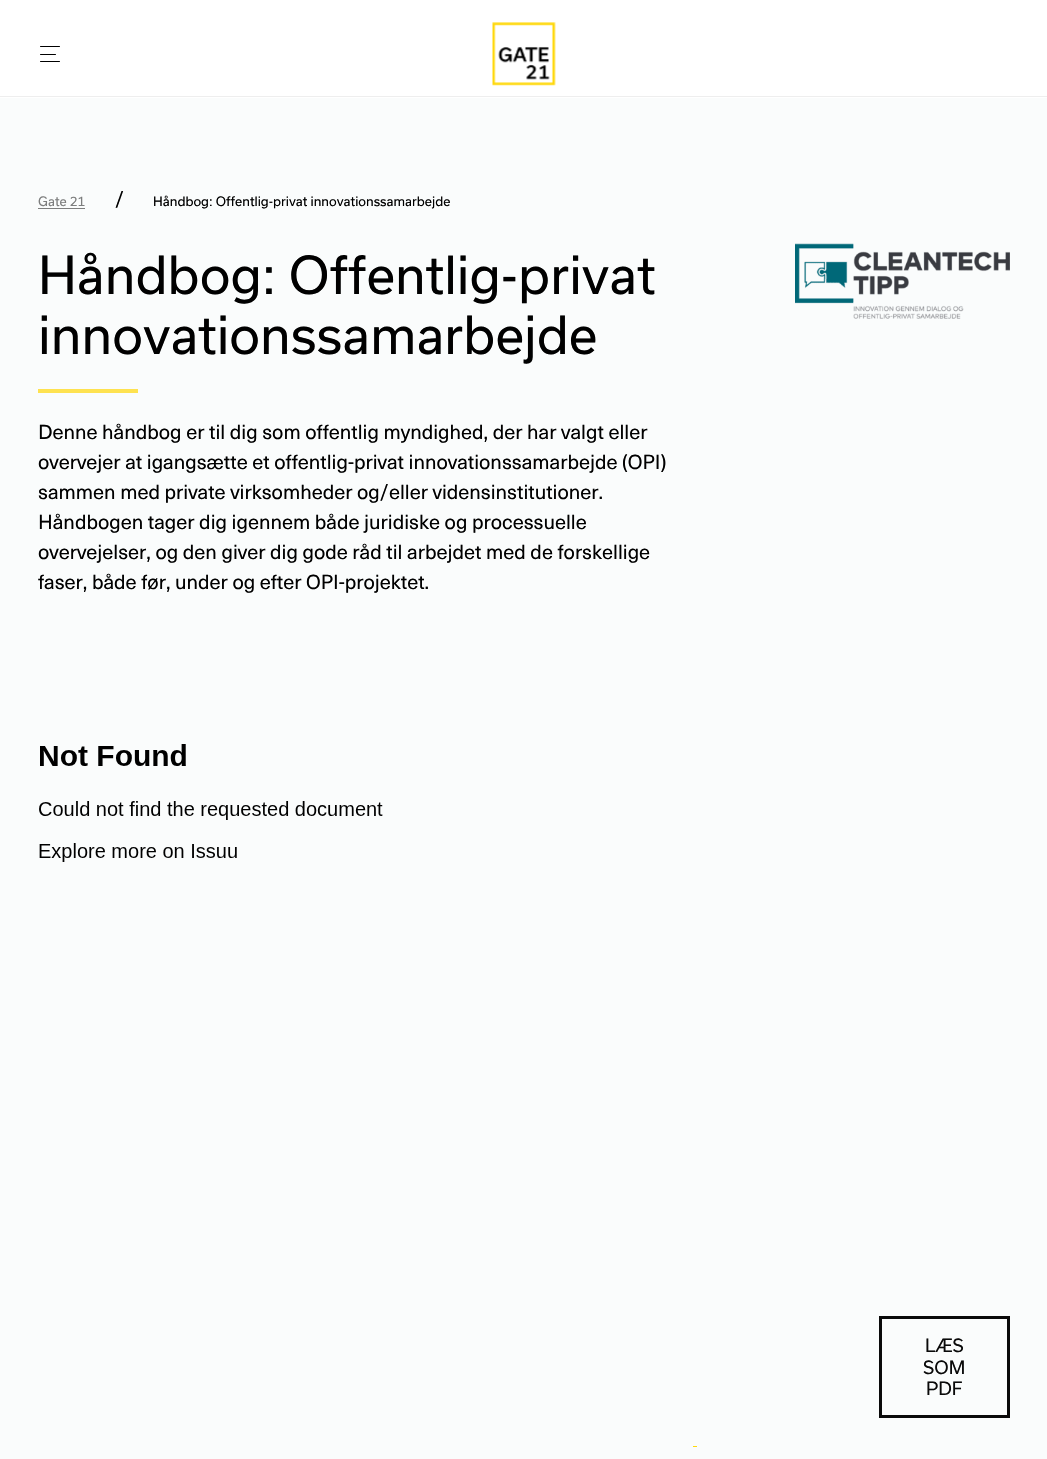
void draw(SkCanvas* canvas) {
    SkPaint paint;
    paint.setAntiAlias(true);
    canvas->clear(0xFFFAFCFC);
    paint.setColor(0xFFFFFFFF);
    canvas->drawRect(SkRect::MakeXYWH(0, 0, 1047, 98), paint);
    paint.setColor(0xFFEEEEEE);
    canvas->drawRect(SkRect::MakeXYWH(0, 96, 1047, 1), paint);
    paint.setColor(0xFF000000);
    canvas->drawRoundRect(SkRect::MakeXYWH(40, 46, 20, 1), 0.5f, 0.5f, paint);
    canvas->drawRoundRect(SkRect::MakeXYWH(40, 54, 16, 1), 0.5f, 0.5f, paint);
    canvas->drawRoundRect(SkRect::MakeXYWH(40, 61, 20, 1), 0.5f, 0.5f, paint);
    canvas->drawImageRect(SkImages::DeferredFromEncodedData(SkData::MakeFromFileName("img1.png")), SkRect::MakeXYWH(492, 22, 64, 64), SkSamplingOptions());
    SkFont font1(fontMgr->matchFamilyStyle("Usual", SkFontStyle::Normal()), 12.5f);
    font1.setSubpixel(true);
    paint.setColor(0xFF7D7E7E);
    canvas->drawString("Gate 21", 38, 206, font1, paint);
    canvas->drawRect(SkRect::MakeXYWH(38, 208, 47, 1), paint);
    SkFont font2(fontMgr->matchFamilyStyle("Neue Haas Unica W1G", SkFontStyle::Normal()), 20);
    font2.setSubpixel(true);
    paint.setColor(0xFF000000);
    canvas->drawString("/", 115, 206, font2, paint);
    canvas->drawString("Håndbog: Offentlig-privat innovationssamarbejde", 153, 206, font1, paint);
    SkFont font3(fontMgr->matchFamilyStyle("Usual", SkFontStyle::Normal()), 50);
    font3.setSubpixel(true);
    canvas->drawString("Håndbog: Offentlig-privat", 38, 294, font3, paint);
    canvas->drawString("innovationssamarbejde", 38, 354, font3, paint);
    paint.setColor(0xFFFEE250);
    canvas->drawRect(SkRect::MakeXYWH(38, 389, 100, 4), paint);
    paint.setColor(0xFF000000);
    canvas->drawString("Denne håndbog er til dig som offentlig myndighed, der har valgt eller", 38, 439, font2, paint);
    canvas->drawString("overvejer at igangsætte et offentlig-privat innovationssamarbejde (OPI)", 38, 469, font2, paint);
    canvas->drawString("sammen med private virksomheder og/eller vidensinstitutioner.", 38, 499, font2, paint);
    canvas->drawString("Håndbogen tager dig igennem både juridiske og processuelle", 38, 529, font2, paint);
    canvas->drawString("overvejelser, og den giver dig gode råd til arbejdet med de forskellige", 38, 559, font2, paint);
    canvas->drawString("faser, både før, under og efter OPI-projektet.", 38, 589, font2, paint);
    canvas->drawImageRect(SkImages::DeferredFromEncodedData(SkData::MakeFromFileName("img2.png")), SkRect::MakeXYWH(795, 243, 215, 76), SkSamplingOptions());
    canvas->drawImageRect(SkImages::DeferredFromEncodedData(SkData::MakeFromFileName("img3.png")), SkRect::MakeXYWH(39, 744, 344, 118), SkSamplingOptions());
    paint.setStyle(SkPaint::kStroke_Style);
    paint.setStrokeWidth(3);
    paint.setColor(0xFF0A0A0A);
    canvas->drawRect(SkRect::MakeXYWH(880.5f, 1317.5f, 128, 99), paint);
    SkFont font4(fontMgr->matchFamilyStyle("Usual", SkFontStyle::Normal()), 17.5f);
    font4.setSubpixel(true);
    paint.setStyle(SkPaint::kFill_Style);
    canvas->drawString("LÆS", 925, 1352, font4, paint);
    canvas->drawString("SOM", 923, 1374, font4, paint);
    canvas->drawString("PDF", 926, 1395, font4, paint);
    paint.setColor(0xFFFFD90C);
    canvas->drawRect(SkRect::MakeXYWH(693, 1446, 4, 1), paint);
}
